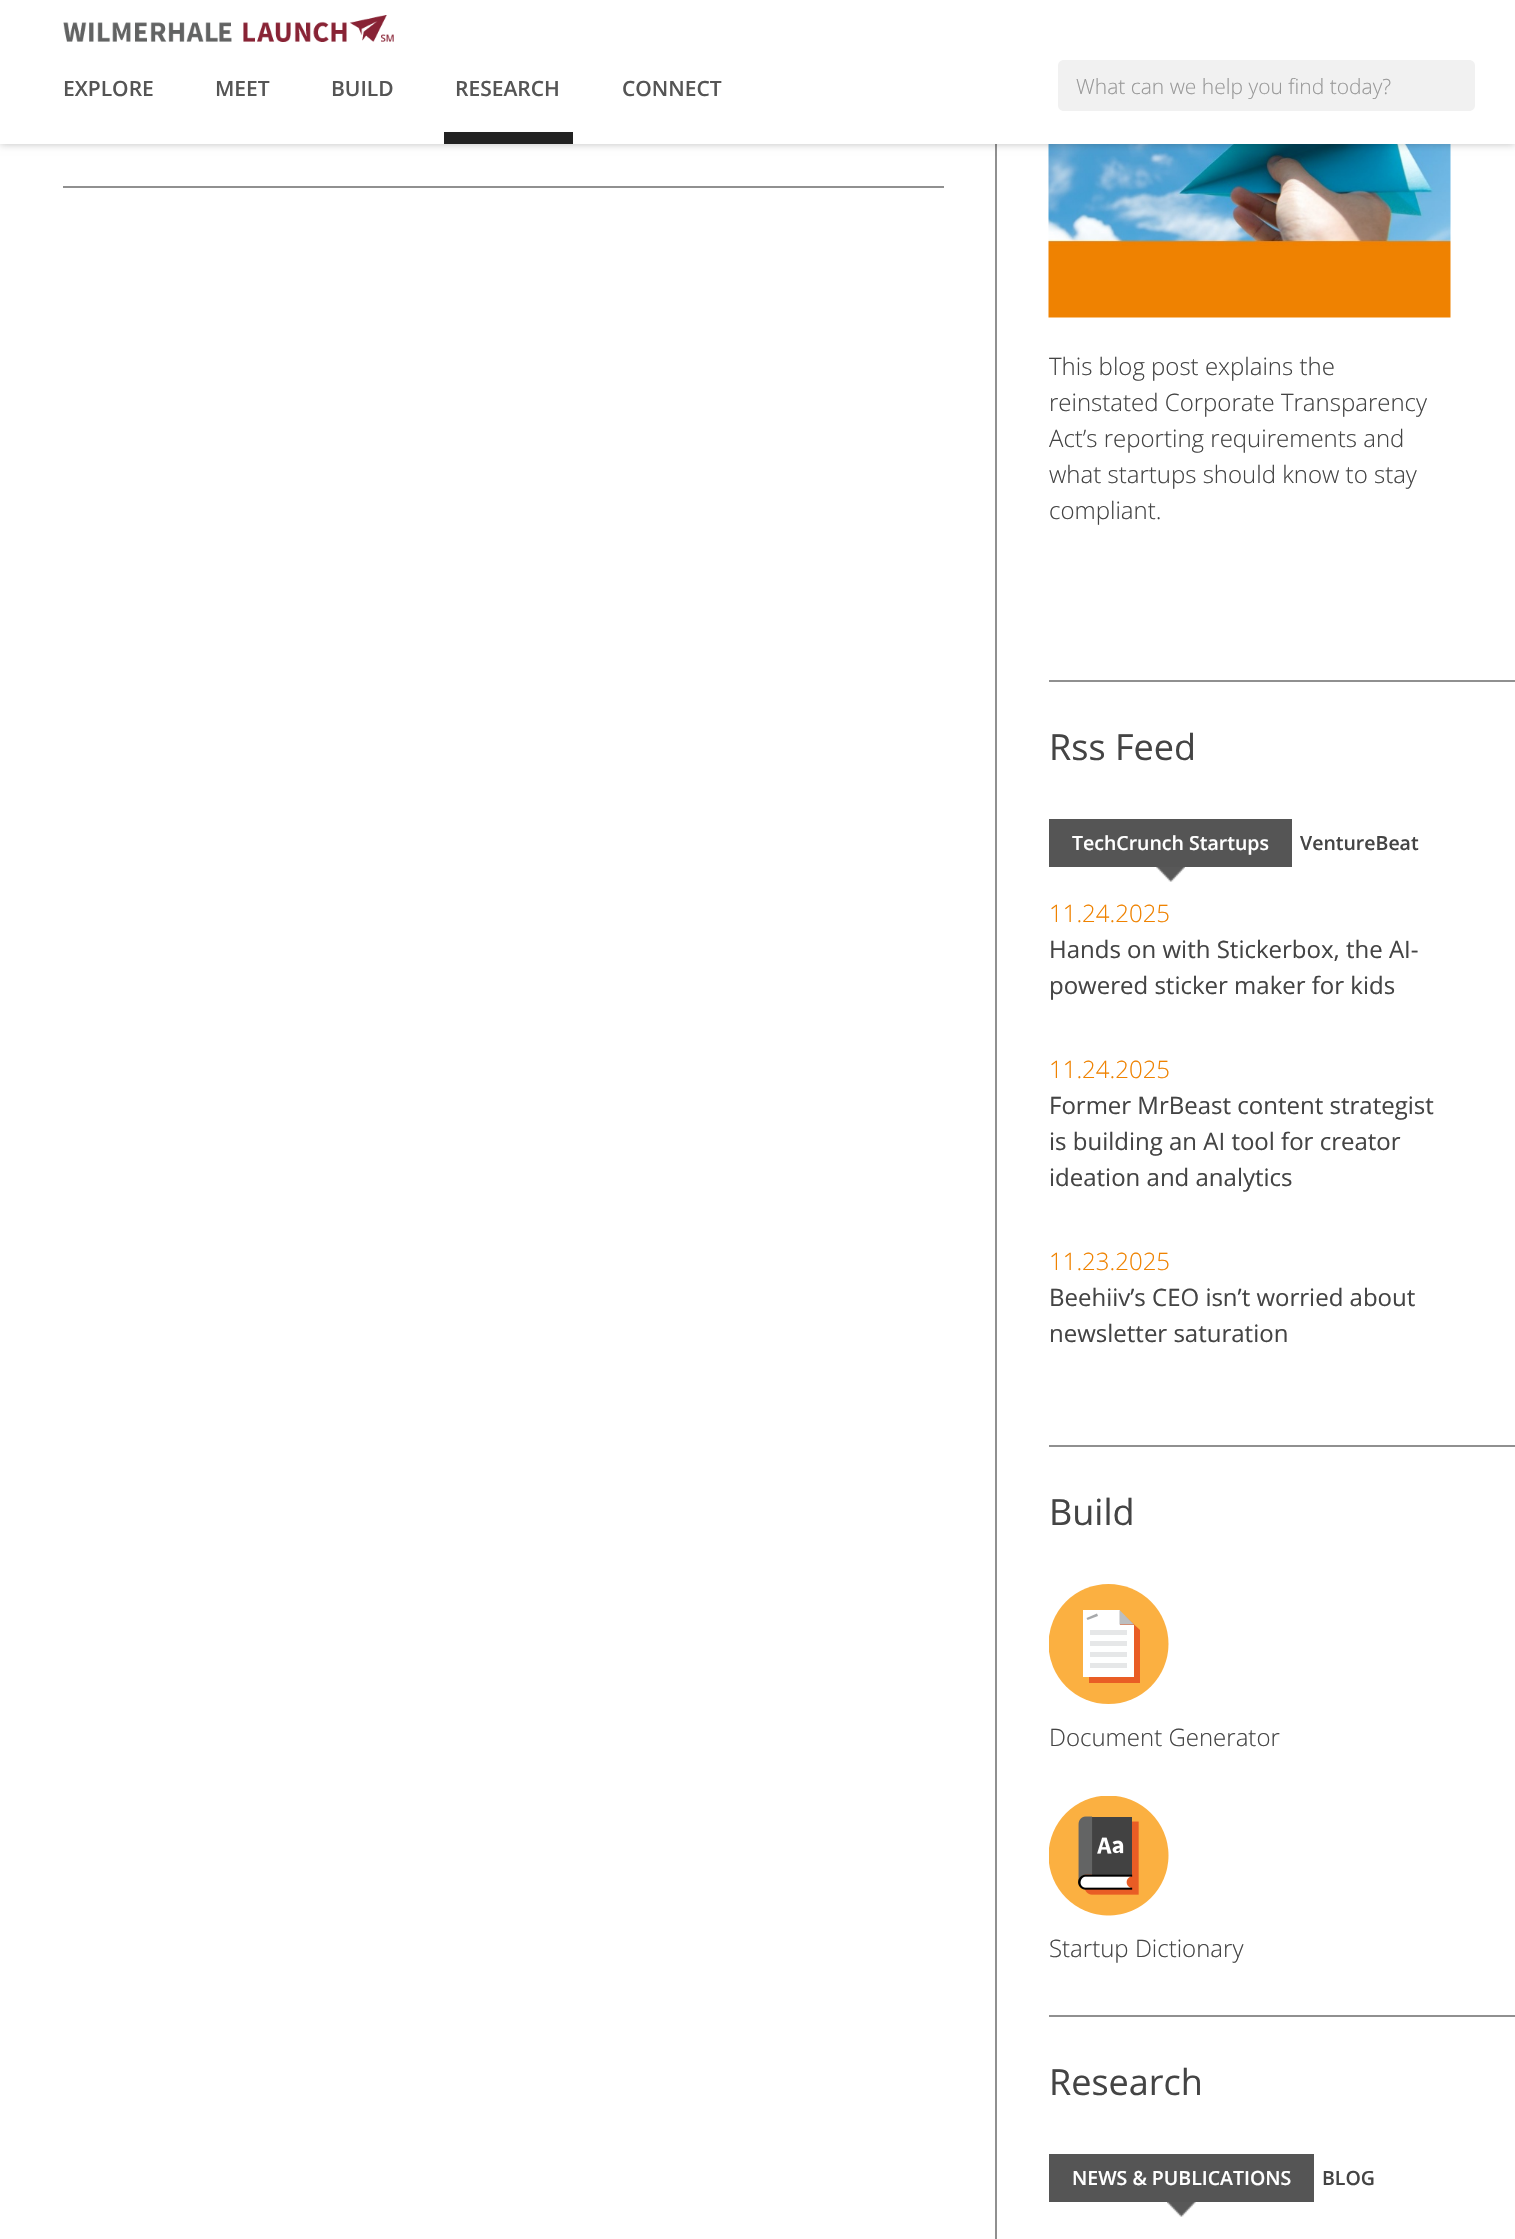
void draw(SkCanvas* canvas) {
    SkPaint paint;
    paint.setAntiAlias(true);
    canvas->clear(0xFFFFFFFF);
    paint.setColor(0xFF909090);
    canvas->drawRect(SkRect::MakeXYWH(995, 144, 2, 2095), paint);
    canvas->drawImageRect(SkImages::DeferredFromEncodedData(SkData::MakeFromFileName("img2.png")), SkRect::MakeXYWH(1048, 144, 403, 174), SkSamplingOptions());
    paint.setColor(0x40000000);
    paint.setMaskFilter(SkMaskFilter::MakeBlur(kNormal_SkBlurStyle, 4));
    canvas->drawRect(SkRect::MakeXYWH(0, 0, 1515, 144), paint);
    paint.setMaskFilter(nullptr);
    paint.setColor(0xFFFFFFFF);
    canvas->drawRect(SkRect::MakeXYWH(0, 0, 1515, 144), paint);
    canvas->drawImageRect(SkImages::DeferredFromEncodedData(SkData::MakeFromFileName("img1.png")), SkRect::MakeXYWH(63, 15, 331, 27), SkSamplingOptions());
    SkFont font1(fontMgr->matchFamilyStyle("Open Sans", SkFontStyle(600, SkFontStyle::kNormal_Width, SkFontStyle::kUpright_Slant)), 21);
    font1.setSubpixel(true);
    paint.setColor(0xFF555555);
    canvas->drawString("EXPLORE", 63, 96, font1, paint);
    canvas->drawString("MEET", 215, 96, font1, paint);
    canvas->drawString("BUILD", 331, 96, font1, paint);
    paint.setColor(0xFF222222);
    canvas->drawRect(SkRect::MakeXYWH(444, 132, 129, 12), paint);
    paint.setColor(0xFF555555);
    canvas->drawString("RESEARCH", 455, 96, font1, paint);
    canvas->drawString("CONNECT", 622, 96, font1, paint);
    paint.setColor(0xFFF1F1F1);
    canvas->drawPath(SkPathBuilder().moveTo(1064, 60).lineTo(1433, 60).lineTo(1433, 111).lineTo(1064, 111).cubicTo(1060.5f, 111, 1058, 108.5f, 1058, 105).lineTo(1058, 66).cubicTo(1058, 62.5f, 1060.5f, 60, 1064, 60).close().detach(), paint);
    SkFont font2(fontMgr->matchFamilyStyle("Open Sans", SkFontStyle(300, SkFontStyle::kNormal_Width, SkFontStyle::kUpright_Slant)), 21);
    font2.setSubpixel(true);
    paint.setColor(0xFF999999);
    canvas->drawString("What can we help you find today?", 1076, 94, font2, paint);
    paint.setColor(0xFFF1F1F1);
    canvas->drawPath(SkPathBuilder().moveTo(1433, 60).lineTo(1469, 60).cubicTo(1472.5f, 60, 1475, 62.5f, 1475, 66).lineTo(1475, 105).cubicTo(1475, 108.5f, 1472.5f, 111, 1469, 111).lineTo(1433, 111).close().detach(), paint);
    paint.setColor(0xFF909090);
    canvas->drawRect(SkRect::MakeXYWH(63, 186, 881, 2), paint);
    SkFont font3(fontMgr->matchFamilyStyle("Open Sans", SkFontStyle(300, SkFontStyle::kNormal_Width, SkFontStyle::kUpright_Slant)), 24);
    font3.setSubpixel(true);
    paint.setColor(0xFF444444);
    canvas->drawString("This blog post explains the", 1049, 375, font3, paint);
    canvas->drawString("reinstated Corporate Transparency", 1049, 411, font3, paint);
    canvas->drawString("Act’s reporting requirements and", 1049, 447, font3, paint);
    canvas->drawString("what startups should know to stay", 1049, 483, font3, paint);
    canvas->drawString("compliant.", 1049, 519, font3, paint);
    paint.setColor(0xFF909090);
    canvas->drawRect(SkRect::MakeXYWH(1049, 680, 466, 2), paint);
    SkFont font4(fontMgr->matchFamilyStyle("Open Sans", SkFontStyle::Normal()), 36);
    font4.setSubpixel(true);
    paint.setColor(0xFF444444);
    canvas->drawString("Rss Feed", 1049, 760, font4, paint);
    paint.setColor(0xFF555555);
    canvas->drawRect(SkRect::MakeXYWH(1049, 819, 243, 48), paint);
    SkFont font5(fontMgr->matchFamilyStyle("Open Sans", SkFontStyle(600, SkFontStyle::kNormal_Width, SkFontStyle::kUpright_Slant)), 19.5f);
    font5.setSubpixel(true);
    paint.setColor(0xFFFFFFFF);
    canvas->drawString("TechCrunch Startups", 1072, 850, font5, paint);
    canvas->drawImageRect(SkImages::DeferredFromEncodedData(SkData::MakeFromFileName("img3.png")), SkRect::MakeXYWH(1156, 867, 29, 15), SkSamplingOptions());
    paint.setColor(0xFF444444);
    canvas->drawString("VentureBeat", 1300, 850, font5, paint);
    paint.setColor(0xFFEF8200);
    canvas->drawString("11.24.2025", 1049, 922, font3, paint);
    SkFont font6(fontMgr->matchFamilyStyle("Open Sans", SkFontStyle::Normal()), 24);
    font6.setSubpixel(true);
    paint.setColor(0xFF444444);
    canvas->drawString("Hands on with Stickerbox, the AI-", 1049, 958, font6, paint);
    canvas->drawString("powered sticker maker for kids", 1049, 994, font6, paint);
    paint.setColor(0xFFEF8200);
    canvas->drawString("11.24.2025", 1049, 1078, font3, paint);
    paint.setColor(0xFF444444);
    canvas->drawString("Former MrBeast content strategist", 1049, 1114, font6, paint);
    canvas->drawString("is building an AI tool for creator", 1049, 1150, font6, paint);
    canvas->drawString("ideation and analytics", 1049, 1186, font6, paint);
    paint.setColor(0xFFEF8200);
    canvas->drawString("11.23.2025", 1049, 1270, font3, paint);
    paint.setColor(0xFF444444);
    canvas->drawString("Beehiiv’s CEO isn’t worried about", 1049, 1306, font6, paint);
    canvas->drawString("newsletter saturation", 1049, 1342, font6, paint);
    paint.setColor(0xFF909090);
    canvas->drawRect(SkRect::MakeXYWH(1049, 1445, 466, 2), paint);
    paint.setColor(0xFF444444);
    canvas->drawString("Build", 1049, 1525, font4, paint);
    canvas->save();
    canvas->clipRect(SkRect::MakeXYWH(1049, 1584, 121, 120));
    paint.setColor(0xFFFBB041);
    canvas->drawCircle(1108.5f, 1644, 60, paint);
    canvas->restore();
    paint.setColor(0xFFE95D25);
    canvas->drawPath(SkPathBuilder().moveTo(1125, 1616).lineTo(1089, 1616).lineTo(1089, 1683).lineTo(1140, 1683).lineTo(1140, 1630).close().detach(), paint);
    paint.setColor(0xFFFFFFFF);
    canvas->drawPath(SkPathBuilder().moveTo(1120, 1610).lineTo(1083, 1610).lineTo(1083, 1677).lineTo(1134, 1677).lineTo(1134, 1625).lineTo(1120, 1625).close().detach(), paint);
    paint.setColor(0xFFBCBEC0);
    canvas->drawPath(SkPathBuilder().moveTo(1119.5f, 1624.5f).lineTo(1134, 1624.5f).lineTo(1119.5f, 1610).close().detach(), paint);
    paint.setColor(0xFFE6E7E8);
    canvas->drawRect(SkRect::MakeXYWH(1090, 1630, 37, 5), paint);
    canvas->drawRect(SkRect::MakeXYWH(1090, 1641, 37, 5), paint);
    canvas->drawRect(SkRect::MakeXYWH(1090, 1652, 37, 5), paint);
    canvas->drawRect(SkRect::MakeXYWH(1090, 1663, 37, 5), paint);
    paint.setColor(0xFFA7A9AB);
    canvas->drawPath(SkPathBuilder().moveTo(1086.5f, 1618).lineTo(1097, 1613.5f).lineTo(1098, 1616).lineTo(1087.5f, 1620).close().detach(), paint);
    paint.setColor(0xFF444444);
    canvas->drawString("Document Generator", 1049, 1746, font3, paint);
    canvas->drawImageRect(SkImages::DeferredFromEncodedData(SkData::MakeFromFileName("img4.png")), SkRect::MakeXYWH(1049, 1796, 120, 120), SkSamplingOptions());
    canvas->drawString("Startup Dictionary", 1049, 1957, font3, paint);
    paint.setColor(0xFF909090);
    canvas->drawRect(SkRect::MakeXYWH(1049, 2015, 466, 2), paint);
    paint.setColor(0xFF444444);
    canvas->drawString("Research", 1049, 2095, font4, paint);
    paint.setColor(0xFF555555);
    canvas->drawRect(SkRect::MakeXYWH(1049, 2154, 265, 48), paint);
    paint.setColor(0xFFFFFFFF);
    canvas->drawString("NEWS & PUBLICATIONS", 1072, 2185, font5, paint);
    canvas->drawImageRect(SkImages::DeferredFromEncodedData(SkData::MakeFromFileName("img5.png")), SkRect::MakeXYWH(1167, 2202, 29, 15), SkSamplingOptions());
    paint.setColor(0xFF444444);
    canvas->drawString("BLOG", 1322, 2185, font5, paint);
}
